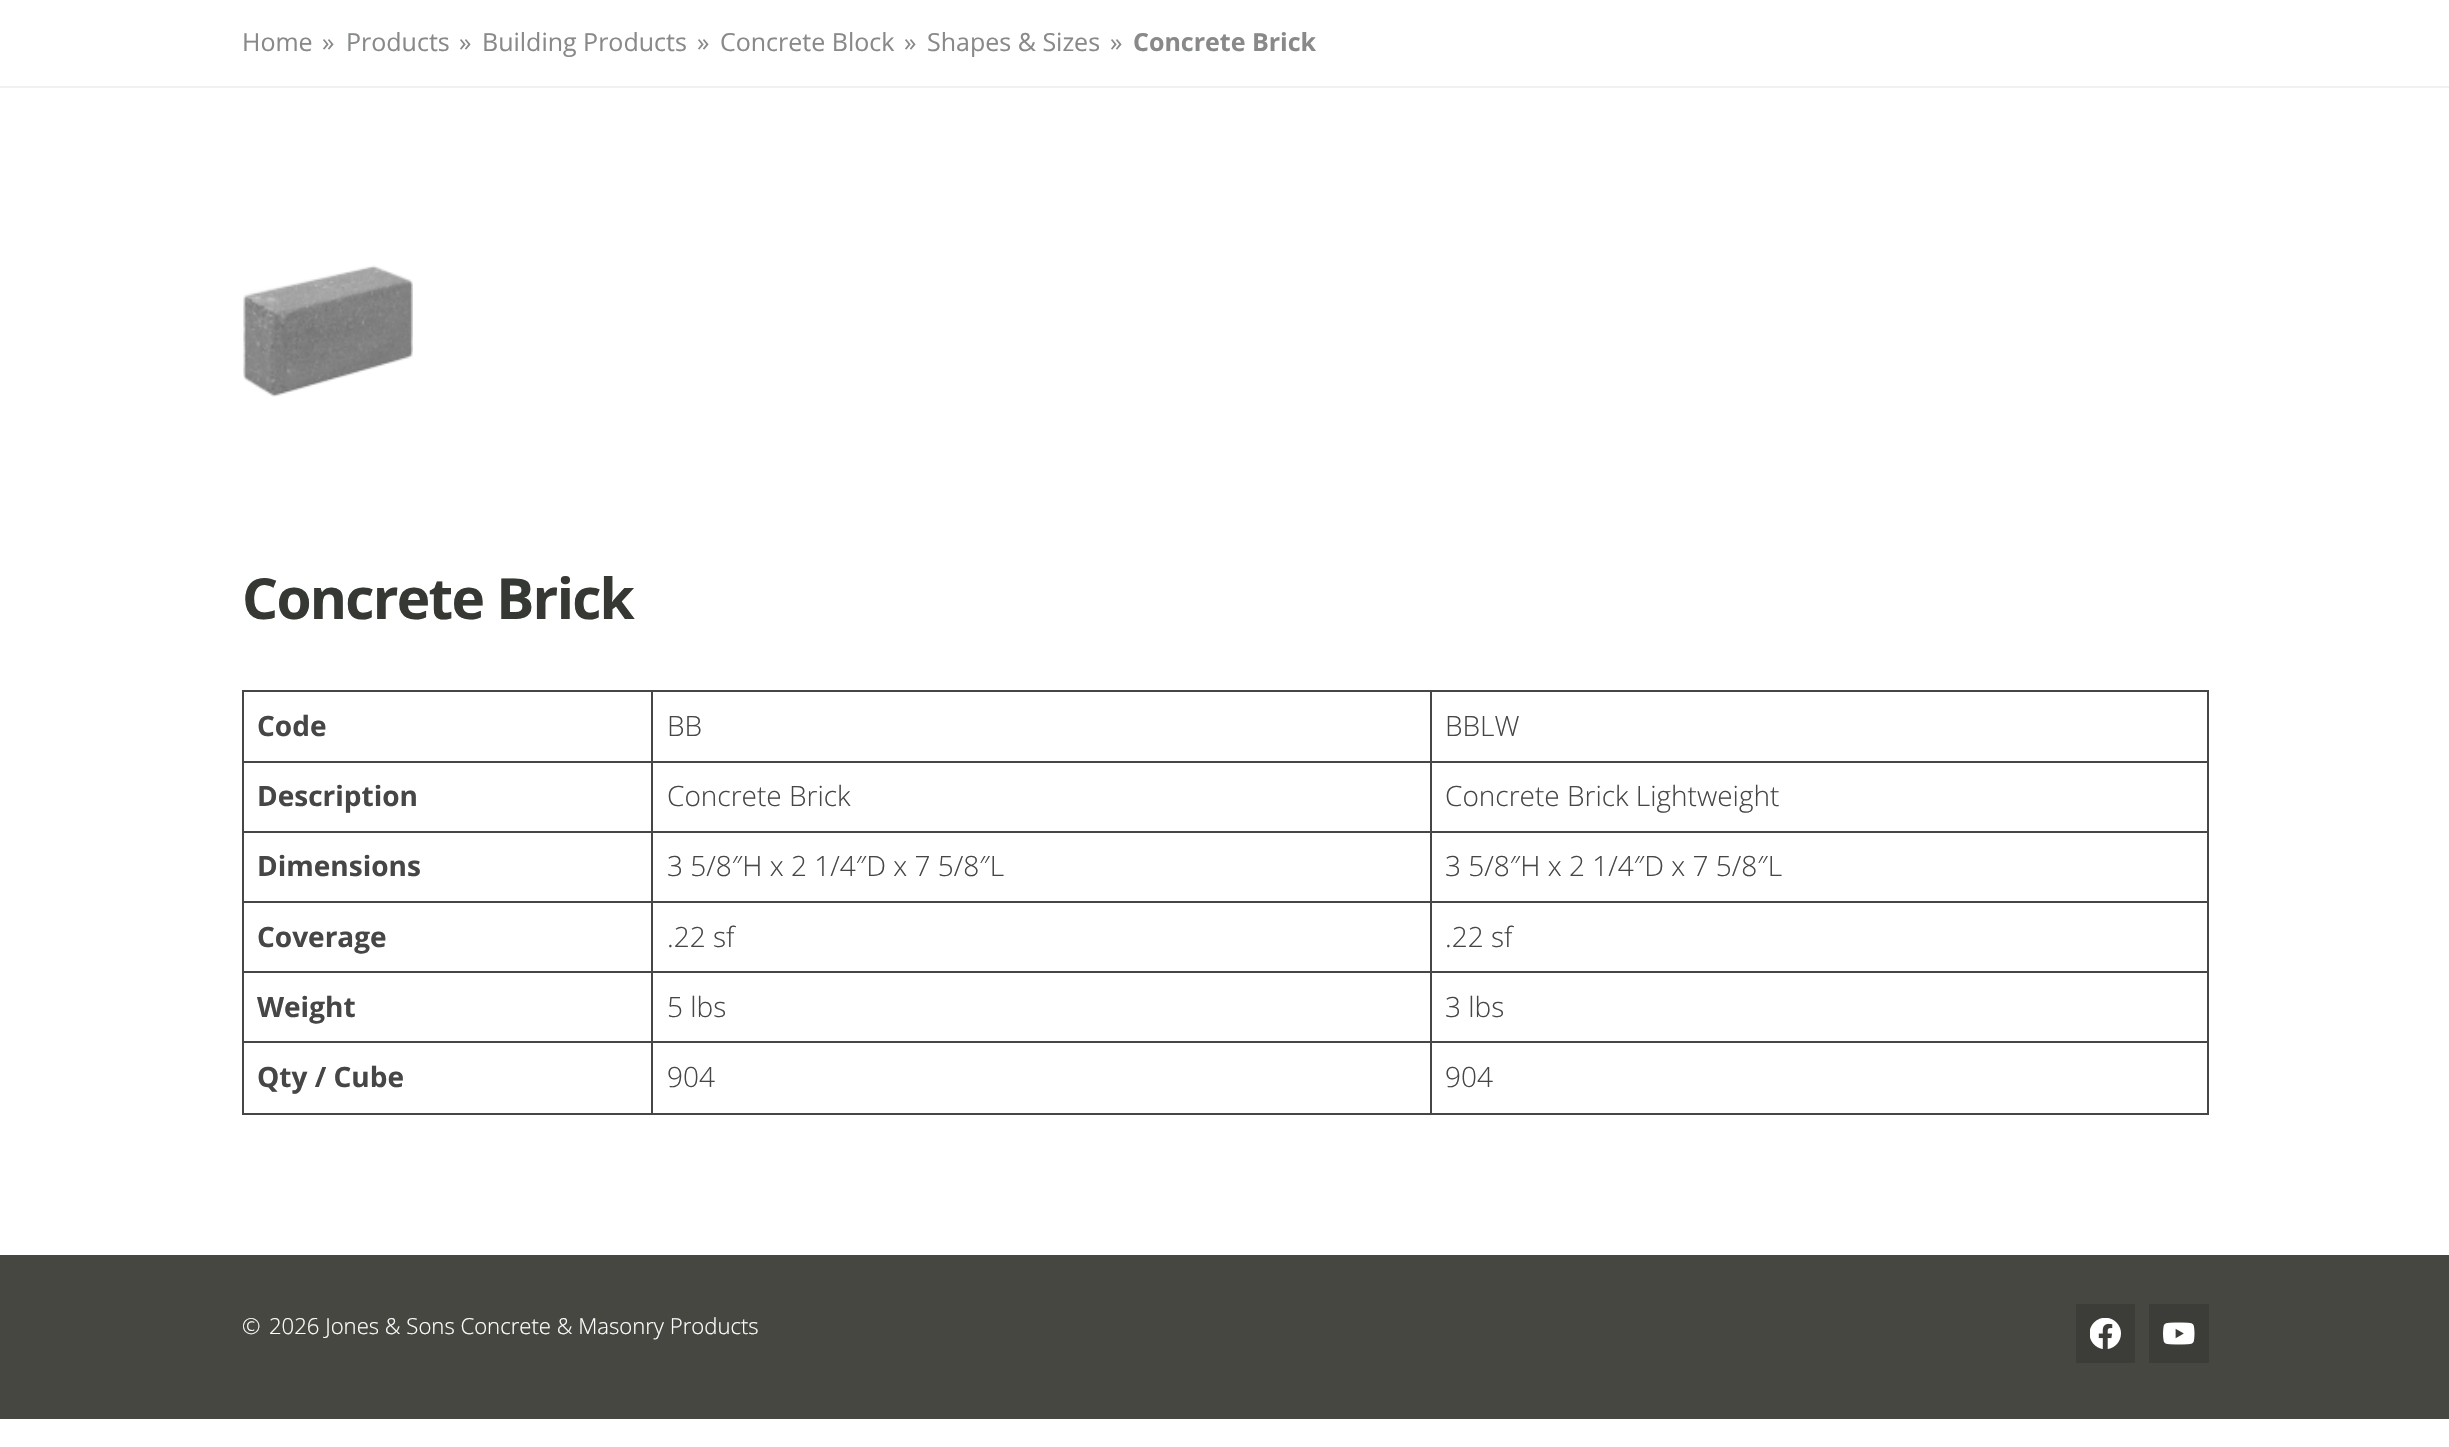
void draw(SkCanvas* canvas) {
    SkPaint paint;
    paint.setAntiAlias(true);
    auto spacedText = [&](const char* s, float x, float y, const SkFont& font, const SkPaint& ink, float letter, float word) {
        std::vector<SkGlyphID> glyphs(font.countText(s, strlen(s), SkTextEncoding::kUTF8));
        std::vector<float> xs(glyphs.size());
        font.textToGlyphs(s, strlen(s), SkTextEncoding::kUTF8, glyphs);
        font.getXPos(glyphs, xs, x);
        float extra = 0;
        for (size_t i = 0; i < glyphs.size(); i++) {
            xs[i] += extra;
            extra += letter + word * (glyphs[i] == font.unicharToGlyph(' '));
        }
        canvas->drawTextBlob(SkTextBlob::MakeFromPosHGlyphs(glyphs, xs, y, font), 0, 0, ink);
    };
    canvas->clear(0xFFFFFFFF);
    paint.setColor(0xFFF1F1F1);
    canvas->drawRect(SkRect::MakeXYWH(0, 86, 2449, 2), paint);
    SkFont font1(fontMgr->matchFamilyStyle("Open Sans", SkFontStyle::Normal()), 25);
    font1.setSubpixel(true);
    paint.setColor(0xFF888989);
    canvas->drawString("Home", 242, 51, font1, paint);
    canvas->drawString("»", 322, 51, font1, paint);
    canvas->drawString("Products", 346, 51, font1, paint);
    canvas->drawString("»", 459, 51, font1, paint);
    canvas->drawString("Building Products", 482, 51, font1, paint);
    canvas->drawString("»", 697, 51, font1, paint);
    canvas->drawString("Concrete Block", 720, 51, font1, paint);
    canvas->drawString("»", 904, 51, font1, paint);
    canvas->drawString("Shapes & Sizes", 927, 51, font1, paint);
    canvas->drawString("»", 1110, 51, font1, paint);
    SkFont font2(fontMgr->matchFamilyStyle("Open Sans", SkFontStyle::Bold()), 25);
    font2.setSubpixel(true);
    canvas->drawString("Concrete Brick", 1133, 51, font2, paint);
    canvas->drawImageRect(SkImages::DeferredFromEncodedData(SkData::MakeFromFileName("img1.png")), SkRect::MakeXYWH(243, 265, 170, 132), SkSamplingOptions());
    SkFont font3(fontMgr->matchFamilyStyle("Open Sans", SkFontStyle::Bold()), 56.75f);
    font3.setSubpixel(true);
    paint.setColor(0xFF353833);
    spacedText("Concrete Brick", 242, 619, font3, paint, -1.75f, 0);
    paint.setColor(0xFF464646);
    canvas->drawRect(SkRect::MakeXYWH(1430, 690, 779, 2), paint);
    canvas->drawRect(SkRect::MakeXYWH(1430, 761, 779, 2), paint);
    canvas->drawRect(SkRect::MakeXYWH(1430, 831, 779, 2), paint);
    canvas->drawRect(SkRect::MakeXYWH(1430, 901, 779, 2), paint);
    canvas->drawRect(SkRect::MakeXYWH(1430, 971, 779, 2), paint);
    canvas->drawRect(SkRect::MakeXYWH(1430, 1041, 779, 2), paint);
    canvas->drawRect(SkRect::MakeXYWH(2207, 1041, 2, 74), paint);
    canvas->drawRect(SkRect::MakeXYWH(1430, 1113, 779, 2), paint);
    canvas->drawRect(SkRect::MakeXYWH(1430, 1041, 2, 74), paint);
    canvas->drawRect(SkRect::MakeXYWH(651, 1041, 781, 2), paint);
    canvas->drawRect(SkRect::MakeXYWH(1430, 971, 2, 72), paint);
    canvas->drawRect(SkRect::MakeXYWH(651, 971, 781, 2), paint);
    canvas->drawRect(SkRect::MakeXYWH(1430, 901, 2, 72), paint);
    canvas->drawRect(SkRect::MakeXYWH(651, 901, 781, 2), paint);
    canvas->drawRect(SkRect::MakeXYWH(1430, 831, 2, 72), paint);
    canvas->drawRect(SkRect::MakeXYWH(651, 831, 781, 2), paint);
    canvas->drawRect(SkRect::MakeXYWH(1430, 761, 2, 72), paint);
    canvas->drawRect(SkRect::MakeXYWH(651, 761, 781, 2), paint);
    canvas->drawRect(SkRect::MakeXYWH(1430, 690, 2, 73), paint);
    canvas->drawRect(SkRect::MakeXYWH(651, 690, 781, 2), paint);
    canvas->drawRect(SkRect::MakeXYWH(651, 1113, 781, 2), paint);
    canvas->drawRect(SkRect::MakeXYWH(651, 1041, 2, 74), paint);
    canvas->drawRect(SkRect::MakeXYWH(242, 1041, 411, 2), paint);
    canvas->drawRect(SkRect::MakeXYWH(651, 971, 2, 72), paint);
    canvas->drawRect(SkRect::MakeXYWH(242, 971, 411, 2), paint);
    canvas->drawRect(SkRect::MakeXYWH(651, 901, 2, 72), paint);
    canvas->drawRect(SkRect::MakeXYWH(242, 901, 411, 2), paint);
    canvas->drawRect(SkRect::MakeXYWH(651, 831, 2, 72), paint);
    canvas->drawRect(SkRect::MakeXYWH(242, 831, 411, 2), paint);
    canvas->drawRect(SkRect::MakeXYWH(651, 761, 2, 72), paint);
    canvas->drawRect(SkRect::MakeXYWH(242, 761, 411, 2), paint);
    canvas->drawRect(SkRect::MakeXYWH(651, 690, 2, 73), paint);
    canvas->drawRect(SkRect::MakeXYWH(242, 690, 411, 2), paint);
    canvas->drawRect(SkRect::MakeXYWH(242, 1113, 411, 2), paint);
    canvas->drawRect(SkRect::MakeXYWH(242, 1041, 2, 74), paint);
    canvas->drawRect(SkRect::MakeXYWH(242, 971, 2, 72), paint);
    canvas->drawRect(SkRect::MakeXYWH(242, 901, 2, 72), paint);
    canvas->drawRect(SkRect::MakeXYWH(242, 831, 2, 72), paint);
    canvas->drawRect(SkRect::MakeXYWH(242, 761, 2, 72), paint);
    canvas->drawRect(SkRect::MakeXYWH(242, 690, 2, 73), paint);
    SkFont font4(fontMgr->matchFamilyStyle("Open Sans", SkFontStyle::Bold()), 28);
    font4.setSubpixel(true);
    canvas->drawString("Code", 257, 736, font4, paint);
    SkFont font5(fontMgr->matchFamilyStyle("Open Sans", SkFontStyle(300, SkFontStyle::kNormal_Width, SkFontStyle::kUpright_Slant)), 28);
    font5.setSubpixel(true);
    canvas->drawString("BB", 667, 736, font5, paint);
    canvas->drawRect(SkRect::MakeXYWH(2207, 971, 2, 72), paint);
    canvas->drawRect(SkRect::MakeXYWH(2207, 901, 2, 72), paint);
    canvas->drawRect(SkRect::MakeXYWH(2207, 831, 2, 72), paint);
    canvas->drawRect(SkRect::MakeXYWH(2207, 761, 2, 72), paint);
    canvas->drawRect(SkRect::MakeXYWH(2207, 690, 2, 73), paint);
    canvas->drawString("BBLW", 1445, 736, font5, paint);
    canvas->drawString("Description", 257, 806, font4, paint);
    canvas->drawString("Concrete Brick", 667, 806, font5, paint);
    canvas->drawString("Concrete Brick Lightweight", 1445, 806, font5, paint);
    canvas->drawString("Dimensions", 257, 876, font4, paint);
    canvas->drawString("3 5/8″H x 2 1/4″D x 7 5/8″L", 667, 876, font5, paint);
    canvas->drawString("3 5/8″H x 2 1/4″D x 7 5/8″L", 1445, 876, font5, paint);
    canvas->drawString("Coverage", 257, 947, font4, paint);
    canvas->drawString(".22 sf", 667, 947, font5, paint);
    canvas->drawString(".22 sf", 1445, 947, font5, paint);
    canvas->drawString("Weight", 257, 1017, font4, paint);
    canvas->drawString("5 lbs", 667, 1017, font5, paint);
    canvas->drawString("3 lbs", 1445, 1017, font5, paint);
    canvas->drawString("Qty / Cube", 257, 1087, font4, paint);
    canvas->drawString("904", 667, 1087, font5, paint);
    canvas->drawString("904", 1445, 1087, font5, paint);
    paint.setColor(0xFF474742);
    canvas->drawRect(SkRect::MakeXYWH(0, 1255, 2449, 164), paint);
    SkFont font6(fontMgr->matchFamilyStyle("Open Sans", SkFontStyle(300, SkFontStyle::kNormal_Width, SkFontStyle::kUpright_Slant)), 22.1f);
    font6.setSubpixel(true);
    paint.setColor(0xFFFFFFFF);
    canvas->drawString("©", 242, 1334, font6, paint);
    canvas->drawString("2026 Jones & Sons Concrete & Masonry Products", 269, 1334, font6, paint);
    paint.setColor(0xFF3C3C38);
    canvas->drawRect(SkRect::MakeXYWH(2076, 1304, 59, 59), paint);
    canvas->drawImageRect(SkImages::DeferredFromEncodedData(SkData::MakeFromFileName("img2.png")), SkRect::MakeXYWH(2090, 1318, 31, 31), SkSamplingOptions());
    canvas->drawRect(SkRect::MakeXYWH(2149, 1304, 60, 59), paint);
    canvas->drawImageRect(SkImages::DeferredFromEncodedData(SkData::MakeFromFileName("img3.png")), SkRect::MakeXYWH(2163, 1322, 32, 23), SkSamplingOptions());
}
